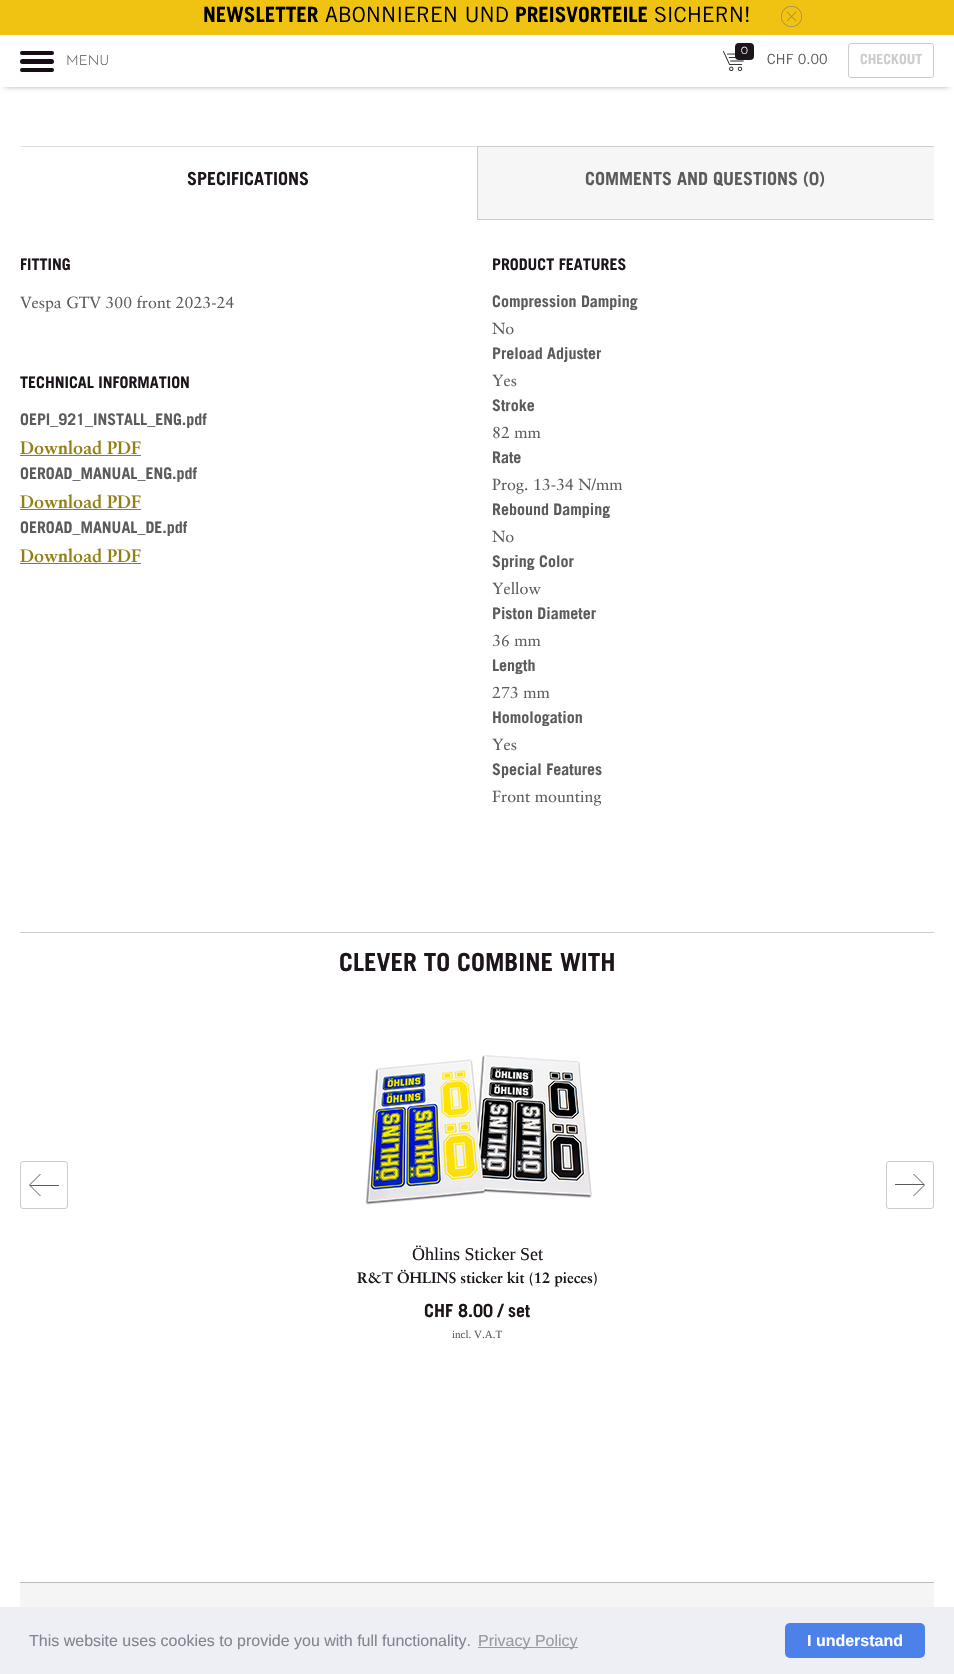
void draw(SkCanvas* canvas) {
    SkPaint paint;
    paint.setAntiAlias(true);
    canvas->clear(0xFFFFFFFF);
    paint.setColor(0xFFF0C312);
    canvas->drawRect(SkRect::MakeXYWH(0, 0, 954, 35), paint);
    SkFont font1(fontMgr->matchFamilyStyle("Trade Gothic", SkFontStyle::Bold()), 21);
    font1.setSubpixel(true);
    paint.setColor(0xFF000000);
    canvas->drawString("NEWSLETTER", 203, 22, font1, paint);
    SkFont font2(fontMgr->matchFamilyStyle("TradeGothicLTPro", SkFontStyle::Normal()), 21);
    font2.setSubpixel(true);
    canvas->drawString("ABONNIEREN UND", 325, 22, font2, paint);
    canvas->drawString("PREISVORTEILE", 515, 22, font1, paint);
    canvas->drawString("SICHERN!", 654, 22, font2, paint);
    canvas->drawImageRect(SkImages::DeferredFromEncodedData(SkData::MakeFromFileName("img1.png")), SkRect::MakeXYWH(781, 6, 21, 21), SkSamplingOptions());
    paint.setColor(0x4D000000);
    paint.setMaskFilter(SkMaskFilter::MakeBlur(kNormal_SkBlurStyle, 2.5f));
    canvas->drawRect(SkRect::MakeXYWH(5, 45, 944, 42), paint);
    paint.setMaskFilter(nullptr);
    paint.setColor(0xFFFFFFFF);
    canvas->drawRect(SkRect::MakeXYWH(0, 40, 954, 47), paint);
    paint.setColor(0xFF160D16);
    canvas->drawRoundRect(SkRect::MakeXYWH(20, 51, 34, 4), 2, 2, paint);
    canvas->drawRoundRect(SkRect::MakeXYWH(20, 59, 34, 5), 2.5f, 2.5f, paint);
    canvas->drawRoundRect(SkRect::MakeXYWH(20, 68, 34, 4), 2, 2, paint);
    SkFont font3(fontMgr->matchFamilyStyle("Josefin Sans", SkFontStyle(100, SkFontStyle::kNormal_Width, SkFontStyle::kUpright_Slant)), 14);
    font3.setSubpixel(true);
    paint.setColor(0xFF5B5B5B);
    canvas->drawString("MENU", 66, 65, font3, paint);
    canvas->drawImageRect(SkImages::DeferredFromEncodedData(SkData::MakeFromFileName("img2.png")), SkRect::MakeXYWH(723, 51, 21, 20), SkSamplingOptions());
    paint.setColor(0xFF1C151C);
    canvas->drawRoundRect(SkRect::MakeXYWH(735, 43, 19, 17), 4, 4, paint);
    SkFont font4(fontMgr->matchFamilyStyle("Josefin Sans", SkFontStyle(100, SkFontStyle::kNormal_Width, SkFontStyle::kUpright_Slant)), 11);
    font4.setSubpixel(true);
    paint.setColor(0xFFFFFFFF);
    canvas->drawString("0", 741, 54, font4, paint);
    SkFont font5(fontMgr->matchFamilyStyle("TradeGothicLTPro", SkFontStyle::Normal()), 14);
    font5.setSubpixel(true);
    paint.setColor(0xFF5B5B5B);
    canvas->drawString("CHF 0.00", 767, 64, font5, paint);
    paint.setStyle(SkPaint::kStroke_Style);
    paint.setStrokeWidth(1);
    paint.setColor(0xFFCCCCCC);
    canvas->drawRoundRect(SkRect::MakeXYWH(848.5f, 43.5f, 85, 34), 2.5f, 2.5f, paint);
    SkFont font6(fontMgr->matchFamilyStyle("Trade Gothic", SkFontStyle::Bold()), 14);
    font6.setSubpixel(true);
    paint.setStyle(SkPaint::kFill_Style);
    canvas->drawString("CHECKOUT", 860, 64, font6, paint);
    paint.setColor(0xFFDDDDDD);
    canvas->drawPath(SkPathBuilder().moveTo(20, 146).lineTo(477, 146).lineTo(476, 147).lineTo(21, 147).close().detach(), paint);
    SkFont font7(fontMgr->matchFamilyStyle("Trade Gothic", SkFontStyle::Bold()), 18);
    font7.setSubpixel(true);
    paint.setColor(0xFF1C151C);
    canvas->drawString("SPECIFICATIONS", 187, 185, font7, paint);
    paint.setColor(0xFFF6F6F6);
    canvas->drawRect(SkRect::MakeXYWH(478, 146, 456, 74), paint);
    paint.setColor(0xFFCCCCCC);
    canvas->drawPath(SkPathBuilder().moveTo(477, 146).lineTo(934, 146).lineTo(933, 147).lineTo(478, 147).close().detach(), paint);
    canvas->drawPath(SkPathBuilder().moveTo(934, 220).lineTo(477, 220).lineTo(478, 219).lineTo(933, 219).close().detach(), paint);
    canvas->drawRect(SkRect::MakeXYWH(477, 146, 1, 74), paint);
    paint.setColor(0xFF5B5B5B);
    canvas->drawString("COMMENTS AND QUESTIONS (0)", 585, 185, font7, paint);
    SkFont font8(fontMgr->matchFamilyStyle("Trade Gothic", SkFontStyle::Bold()), 16);
    font8.setSubpixel(true);
    paint.setColor(0xFF1C151C);
    canvas->drawString("FITTING", 20, 270, font8, paint);
    SkFont font9(fontMgr->matchFamilyStyle("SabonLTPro", SkFontStyle::Normal()), 16);
    font9.setSubpixel(true);
    paint.setColor(0xFF5B5B5B);
    canvas->drawString("Vespa GTV 300 front 2023-24", 20, 308, font9, paint);
    paint.setColor(0xFF1C151C);
    canvas->drawString("TECHNICAL INFORMATION", 20, 388, font8, paint);
    paint.setColor(0xFF5B5B5B);
    canvas->drawString("OEPI_921_INSTALL_ENG.pdf", 20, 425, font8, paint);
    SkFont font10(fontMgr->matchFamilyStyle("SabonLTPro", SkFontStyle::Bold()), 18);
    font10.setSubpixel(true);
    paint.setColor(0xFF938014);
    canvas->drawString("Download PDF", 20, 454, font10, paint);
    canvas->drawRect(SkRect::MakeXYWH(20, 455, 121, 1), paint);
    paint.setColor(0xFF5B5B5B);
    canvas->drawString("OEROAD_MANUAL_ENG.pdf", 20, 479, font8, paint);
    paint.setColor(0xFF938014);
    canvas->drawString("Download PDF", 20, 508, font10, paint);
    canvas->drawRect(SkRect::MakeXYWH(20, 509, 121, 1), paint);
    paint.setColor(0xFF5B5B5B);
    canvas->drawString("OEROAD_MANUAL_DE.pdf", 20, 533, font8, paint);
    paint.setColor(0xFF938014);
    canvas->drawString("Download PDF", 20, 562, font10, paint);
    canvas->drawRect(SkRect::MakeXYWH(20, 563, 121, 1), paint);
    paint.setColor(0xFF1C151C);
    canvas->drawString("PRODUCT FEATURES", 492, 270, font8, paint);
    paint.setColor(0xFF5B5B5B);
    canvas->drawString("Compression Damping", 492, 307, font8, paint);
    canvas->drawString("No", 492, 334, font9, paint);
    canvas->drawString("Preload Adjuster", 492, 359, font8, paint);
    canvas->drawString("Yes", 492, 386, font9, paint);
    canvas->drawString("Stroke", 492, 411, font8, paint);
    canvas->drawString("82 mm", 492, 438, font9, paint);
    canvas->drawString("Rate", 492, 463, font8, paint);
    canvas->drawString("Prog. 13-34 N/mm", 492, 490, font9, paint);
    canvas->drawString("Rebound Damping", 492, 515, font8, paint);
    canvas->drawString("No", 492, 542, font9, paint);
    canvas->drawString("Spring Color", 492, 567, font8, paint);
    canvas->drawString("Yellow", 492, 594, font9, paint);
    canvas->drawString("Piston Diameter", 492, 619, font8, paint);
    canvas->drawString("36 mm", 492, 646, font9, paint);
    canvas->drawString("Length", 492, 671, font8, paint);
    canvas->drawString("273 mm", 492, 698, font9, paint);
    canvas->drawString("Homologation", 492, 723, font8, paint);
    canvas->drawString("Yes", 492, 750, font9, paint);
    canvas->drawString("Special Features", 492, 775, font8, paint);
    canvas->drawString("Front mounting", 492, 802, font9, paint);
    paint.setColor(0xFFCCCCCC);
    canvas->drawRect(SkRect::MakeXYWH(20, 932, 914, 1), paint);
    SkFont font11(fontMgr->matchFamilyStyle("Trade Gothic", SkFontStyle::Bold()), 25);
    font11.setSubpixel(true);
    paint.setColor(0xFF1C151C);
    canvas->drawString("CLEVER TO COMBINE WITH", 339, 971, font11, paint);
    paint.setStyle(SkPaint::kStroke_Style);
    paint.setColor(0xFFCCCCCC);
    canvas->drawRoundRect(SkRect::MakeXYWH(20.5f, 1161.5f, 47, 47), 2.5f, 2.5f, paint);
    paint.setStyle(SkPaint::kFill_Style);
    paint.setColor(0xFF5B5B5B);
    canvas->drawRect(SkRect::MakeXYWH(30, 1185, 29, 1), paint);
    paint.setStyle(SkPaint::kStroke_Style);
    canvas->drawPath(SkPathBuilder().moveTo(29.5f, 1185).lineTo(40.5f, 1196).moveTo(40.5f, 1174).lineTo(29.5f, 1185).detach(), paint);
    paint.setColor(0xFFCCCCCC);
    canvas->drawRoundRect(SkRect::MakeXYWH(886.5f, 1161.5f, 47, 47), 2.5f, 2.5f, paint);
    paint.setStyle(SkPaint::kFill_Style);
    paint.setColor(0xFF5B5B5B);
    canvas->drawRect(SkRect::MakeXYWH(895, 1184, 29, 1), paint);
    paint.setStyle(SkPaint::kStroke_Style);
    canvas->drawPath(SkPathBuilder().moveTo(924.5f, 1185).lineTo(913.5f, 1174).moveTo(913.5f, 1196).lineTo(924.5f, 1185).detach(), paint);
    canvas->drawImageRect(SkImages::DeferredFromEncodedData(SkData::MakeFromFileName("img3.png")), SkRect::MakeXYWH(365, 1055, 227, 150), SkSamplingOptions());
    SkFont font12(fontMgr->matchFamilyStyle("Liberation Serif", SkFontStyle::Normal()), 18);
    font12.setSubpixel(true);
    paint.setStyle(SkPaint::kFill_Style);
    paint.setColor(0xFF1C151C);
    canvas->drawString("Öhlins Sticker Set", 412, 1260, font12, paint);
    SkFont font13(fontMgr->matchFamilyStyle("SabonLTPro", SkFontStyle::Bold()), 15);
    font13.setSubpixel(true);
    canvas->drawString("R&T ÖHLINS sticker kit (12 pieces)", 357, 1283, font13, paint);
    canvas->drawString("CHF 8.00 / set", 424, 1317, font7, paint);
    SkFont font14(fontMgr->matchFamilyStyle("Liberation Serif", SkFontStyle::Normal()), 11);
    font14.setSubpixel(true);
    paint.setColor(0xFF5B5B5B);
    canvas->drawString("incl. V.A.T", 452, 1338, font14, paint);
    paint.setColor(0xFFF5F5F5);
    canvas->drawRect(SkRect::MakeXYWH(20, 1583, 914, 24), paint);
    paint.setColor(0xFFBBBBBB);
    canvas->drawRect(SkRect::MakeXYWH(20, 1582, 914, 1), paint);
    paint.setColor(0xFFEDEFF5);
    canvas->drawRect(SkRect::MakeXYWH(0, 1607, 954, 67), paint);
    SkFont font15(fontMgr->matchFamilyStyle("Liberation Sans", SkFontStyle::Normal()), 16);
    font15.setSubpixel(true);
    paint.setColor(0xFF838391);
    canvas->drawString("This website uses cookies to provide you with full functionality.", 29, 1646, font15, paint);
    paint.setColor(0xFF9899A5);
    canvas->drawRect(SkRect::MakeXYWH(478, 1647, 100, 1), paint);
    canvas->drawString("Privacy Policy", 478, 1646, font15, paint);
    paint.setColor(0xFF4B81E8);
    canvas->drawRoundRect(SkRect::MakeXYWH(785, 1623, 140, 35), 5, 5, paint);
    SkFont font16(fontMgr->matchFamilyStyle("Liberation Sans", SkFontStyle::Bold()), 16);
    font16.setSubpixel(true);
    paint.setColor(0xFFFFFFFF);
    canvas->drawString("I understand", 807, 1646, font16, paint);
}
